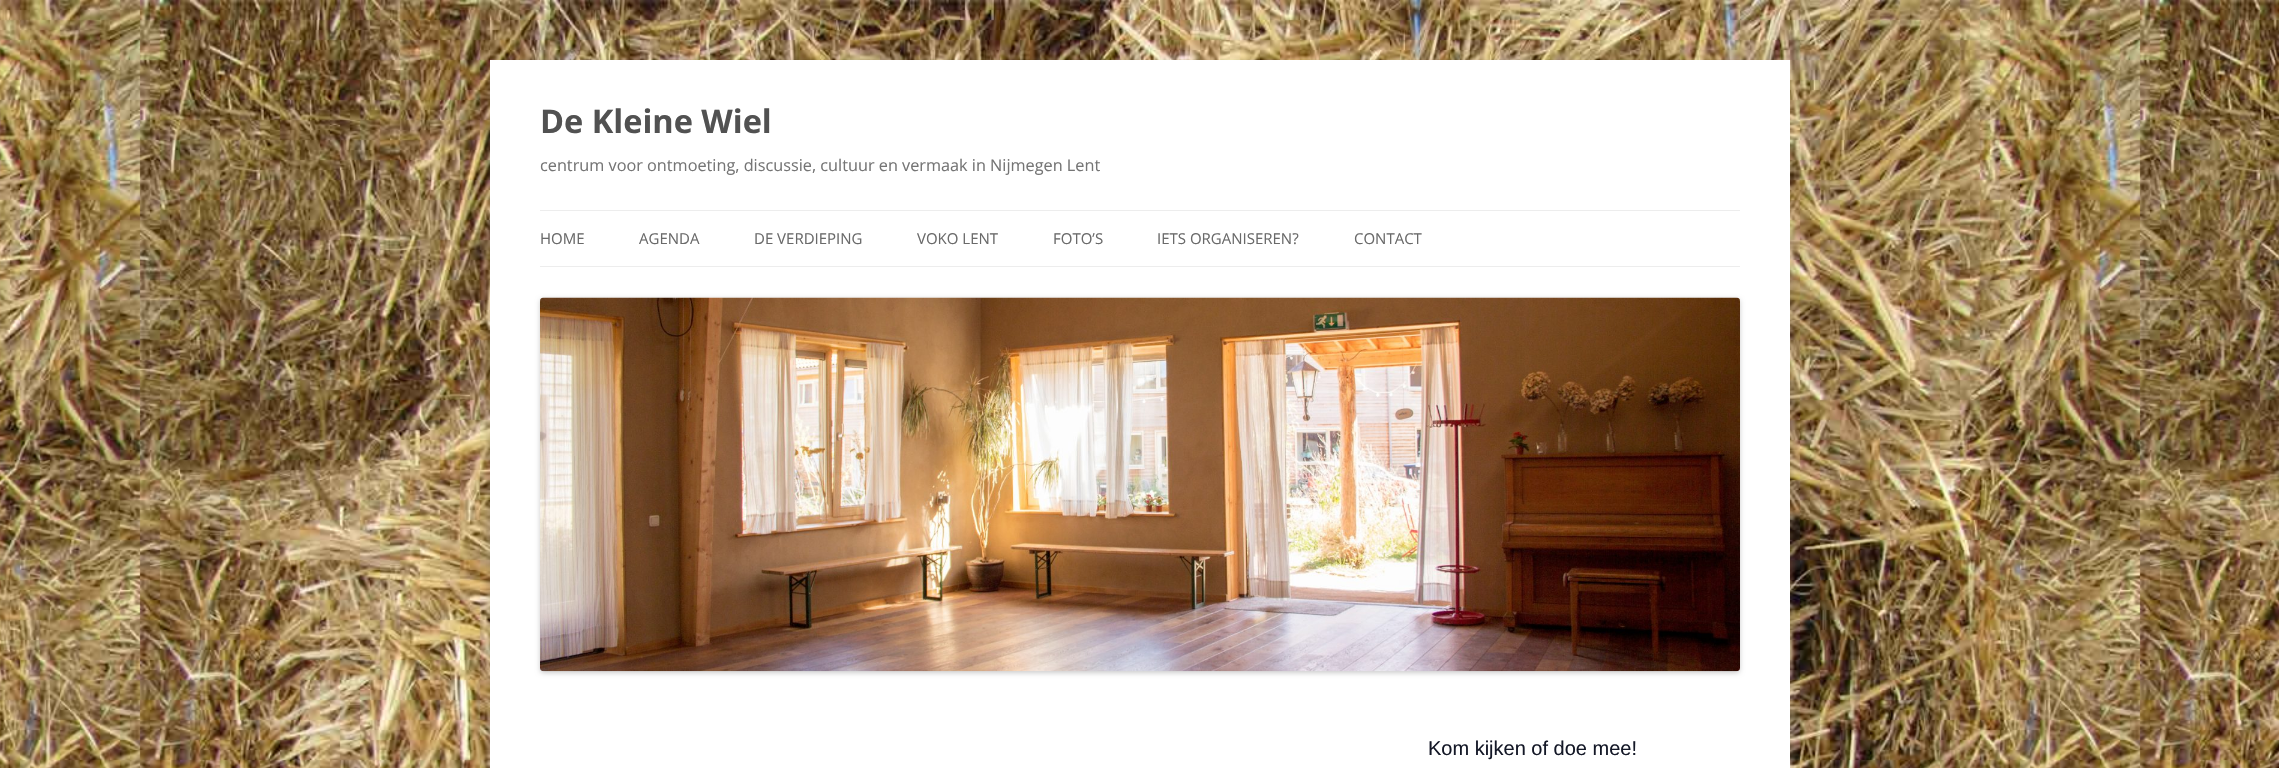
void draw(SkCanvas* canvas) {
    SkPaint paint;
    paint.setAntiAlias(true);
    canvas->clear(0xFFFFFFFF);
    canvas->drawImageRect(SkImages::DeferredFromEncodedData(SkData::MakeFromFileName("img1.png")), SkRect::MakeXYWH(0, 0, 2279, 768), SkSamplingOptions());
    paint.setColor(0x4D646464);
    paint.setMaskFilter(SkMaskFilter::MakeBlur(kNormal_SkBlurStyle, 4));
    canvas->drawRect(SkRect::MakeXYWH(490, 63, 1300, 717), paint);
    paint.setMaskFilter(nullptr);
    paint.setColor(0xFFFFFFFF);
    canvas->drawRect(SkRect::MakeXYWH(490, 60, 1300, 708), paint);
    SkFont font1(fontMgr->matchFamilyStyle("Open Sans", SkFontStyle::Bold()), 32.5f);
    font1.setSubpixel(true);
    paint.setColor(0xFF515151);
    canvas->drawString("De Kleine Wiel", 540, 133, font1, paint);
    SkFont font2(fontMgr->matchFamilyStyle("Open Sans", SkFontStyle::Normal()), 16.25f);
    font2.setSubpixel(true);
    paint.setColor(0xFF757575);
    canvas->drawString("centrum voor ontmoeting, discussie, cultuur en vermaak in Nijmegen Lent", 540, 171, font2, paint);
    paint.setColor(0xFFEDEDED);
    canvas->drawRect(SkRect::MakeXYWH(540, 210, 1200, 1), paint);
    canvas->drawRect(SkRect::MakeXYWH(540, 266, 1200, 1), paint);
    SkFont font3(fontMgr->matchFamilyStyle("Open Sans", SkFontStyle::Normal()), 15);
    font3.setSubpixel(true);
    paint.setColor(0xFF6A6A6A);
    canvas->drawString("HOME", 540, 244, font3, paint);
    canvas->drawString("AGENDA", 639, 244, font3, paint);
    canvas->drawString("DE VERDIEPING", 754, 244, font3, paint);
    canvas->drawString("VOKO LENT", 917, 244, font3, paint);
    canvas->drawString("FOTO’S", 1053, 244, font3, paint);
    canvas->drawString("IETS ORGANISEREN?", 1157, 244, font3, paint);
    canvas->drawString("CONTACT", 1354, 244, font3, paint);
    paint.setColor(0x33000000);
    paint.setMaskFilter(SkMaskFilter::MakeBlur(kNormal_SkBlurStyle, 2.5f));
    canvas->drawRoundRect(SkRect::MakeXYWH(540, 299, 1200, 374), 4, 4, paint);
    paint.setMaskFilter(nullptr);
    canvas->drawImageRect(SkImages::DeferredFromEncodedData(SkData::MakeFromFileName("img2.png")), SkRect::MakeXYWH(540, 297, 1200, 375), SkSamplingOptions());
    SkFont font4(fontMgr->matchFamilyStyle("Liberation Sans", SkFontStyle::Normal()), 20);
    font4.setSubpixel(true);
    paint.setColor(0xFF141827);
    canvas->drawString("Kom kijken of doe mee!", 1428, 755, font4, paint);
}
